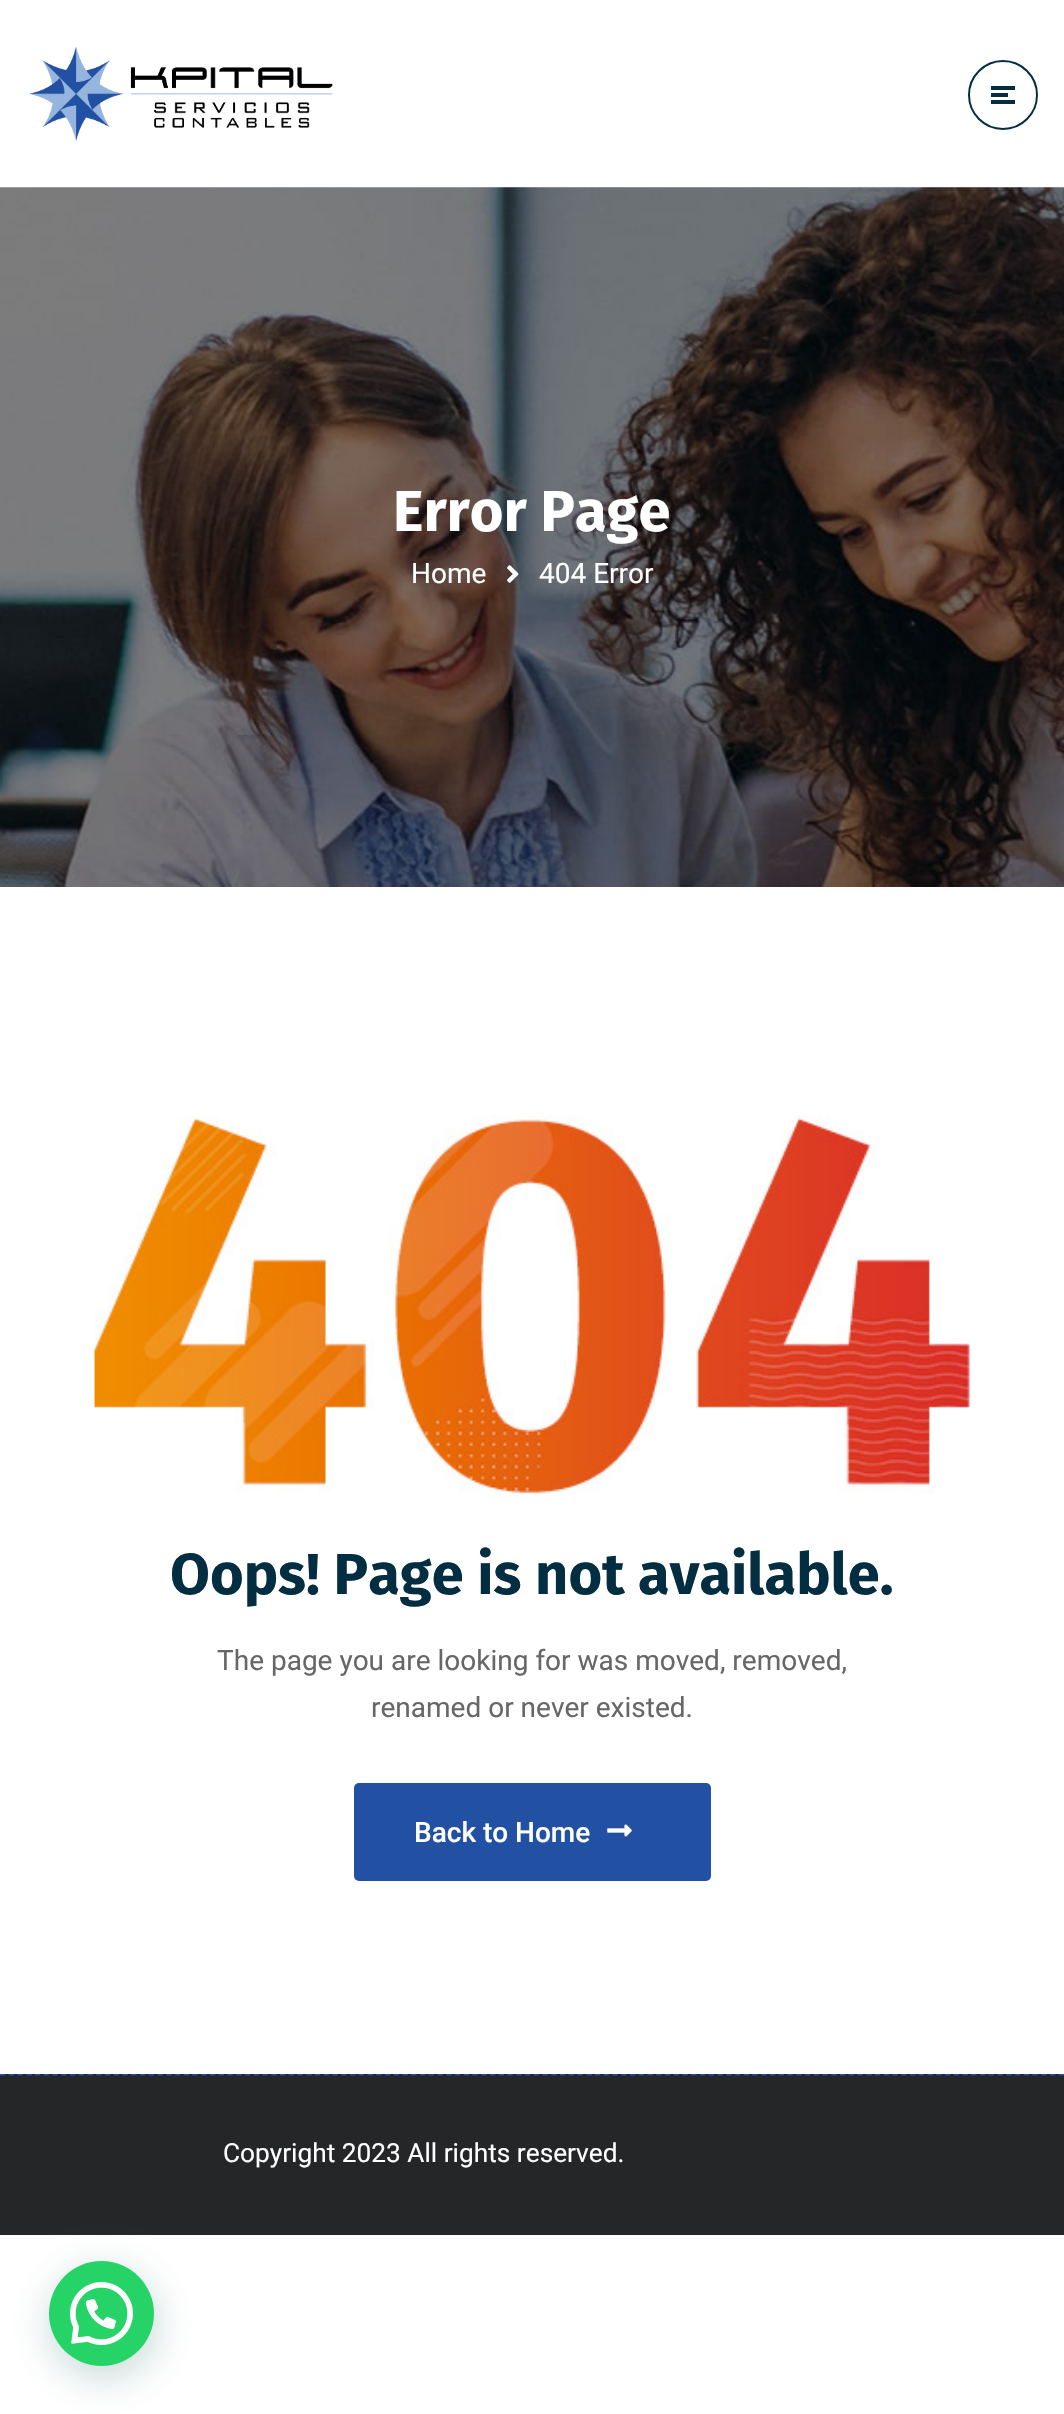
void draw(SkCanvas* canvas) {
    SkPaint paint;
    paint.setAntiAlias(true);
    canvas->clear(0xFFFFFFFF);
    canvas->drawImageRect(SkImages::DeferredFromEncodedData(SkData::MakeFromFileName("img1.png")), SkRect::MakeXYWH(28, 47, 305, 94), SkSamplingOptions());
    paint.setStyle(SkPaint::kStroke_Style);
    paint.setStrokeWidth(2);
    paint.setColor(0xFF032E42);
    canvas->drawCircle(1003, 95, 34, paint);
    paint.setStyle(SkPaint::kFill_Style);
    canvas->drawRect(SkRect::MakeXYWH(991, 86, 24, 4), paint);
    canvas->drawRect(SkRect::MakeXYWH(991, 93, 17, 4), paint);
    canvas->drawRect(SkRect::MakeXYWH(991, 100, 24, 4), paint);
    canvas->drawImageRect(SkImages::DeferredFromEncodedData(SkData::MakeFromFileName("img2.png")), SkRect::MakeXYWH(0, 187, 1064, 700), SkSamplingOptions());
    SkFont font1(fontMgr->matchFamilyStyle("Fira Sans", SkFontStyle::Bold()), 57.75f);
    font1.setSubpixel(true);
    paint.setColor(0xFFFFFFFF);
    canvas->drawString("Error Page", 393, 531, font1, paint);
    SkFont font2(fontMgr->matchFamilyStyle("Roboto", SkFontStyle::Normal()), 28);
    font2.setSubpixel(true);
    canvas->drawString("Home", 411, 583, font2, paint);
    canvas->drawImageRect(SkImages::DeferredFromEncodedData(SkData::MakeFromFileName("img3.png")), SkRect::MakeXYWH(507, 565, 12, 18), SkSamplingOptions());
    canvas->drawString("404 Error", 539, 583, font2, paint);
    paint.setColor(0xFF252628);
    canvas->drawRect(SkRect::MakeXYWH(0, 2074, 1064, 161), paint);
    paint.setStyle(SkPaint::kStroke_Style);
    paint.setStrokeWidth(1.8f);
    paint.setColor(0xFF2251A4);
    paint.setPathEffect(SkDashPathEffect::Make({{5.25f, 3.5f}}, 0));
    canvas->drawPath(SkPathBuilder().moveTo(0, 2074.5f).lineTo(1064, 2074.5f).detach(), paint);
    paint.setPathEffect(nullptr);
    paint.setStyle(SkPaint::kFill_Style);
    paint.setColor(0xFFFFFFFF);
    canvas->drawRect(SkRect::MakeXYWH(0, 2073, 1064, 1), paint);
    canvas->drawImageRect(SkImages::DeferredFromEncodedData(SkData::MakeFromFileName("img4.png")), SkRect::MakeXYWH(94, 1115, 876, 379), SkSamplingOptions());
    paint.setColor(0xFF032E42);
    canvas->drawString("Oops! Page is not available.", 170, 1594, font1, paint);
    paint.setColor(0xFF676767);
    canvas->drawString("The page you are looking for was moved, removed,", 217, 1670, font2, paint);
    canvas->drawString("renamed or never existed.", 371, 1717, font2, paint);
    paint.setColor(0xFF2251A4);
    canvas->drawRoundRect(SkRect::MakeXYWH(354, 1783, 357, 98), 5, 5, paint);
    SkFont font3(fontMgr->matchFamilyStyle("Roboto", SkFontStyle(500, SkFontStyle::kNormal_Width, SkFontStyle::kUpright_Slant)), 28);
    font3.setSubpixel(true);
    paint.setColor(0xFFFFFFFF);
    canvas->drawString("Back to Home", 414, 1842, font3, paint);
    canvas->drawImageRect(SkImages::DeferredFromEncodedData(SkData::MakeFromFileName("img5.png")), SkRect::MakeXYWH(607, 1824, 25, 13), SkSamplingOptions());
    SkFont font4(fontMgr->matchFamilyStyle("Roboto", SkFontStyle::Normal()), 26.25f);
    font4.setSubpixel(true);
    canvas->drawString("Copyright 2023 All rights reserved.", 223, 2162, font4, paint);
    paint.setColor(0x3D075E54);
    paint.setMaskFilter(SkMaskFilter::MakeBlur(kNormal_SkBlurStyle, 21));
    canvas->drawRoundRect(SkRect::MakeXYWH(51, 2272, 105, 105), 52.5f, 52.5f, paint);
    paint.setMaskFilter(nullptr);
    paint.setColor(0xFF25D366);
    canvas->drawCircle(101.5f, 2313.5f, 52.5f, paint);
    canvas->drawImageRect(SkImages::DeferredFromEncodedData(SkData::MakeFromFileName("img6.png")), SkRect::MakeXYWH(70, 2282, 63, 63), SkSamplingOptions());
}
